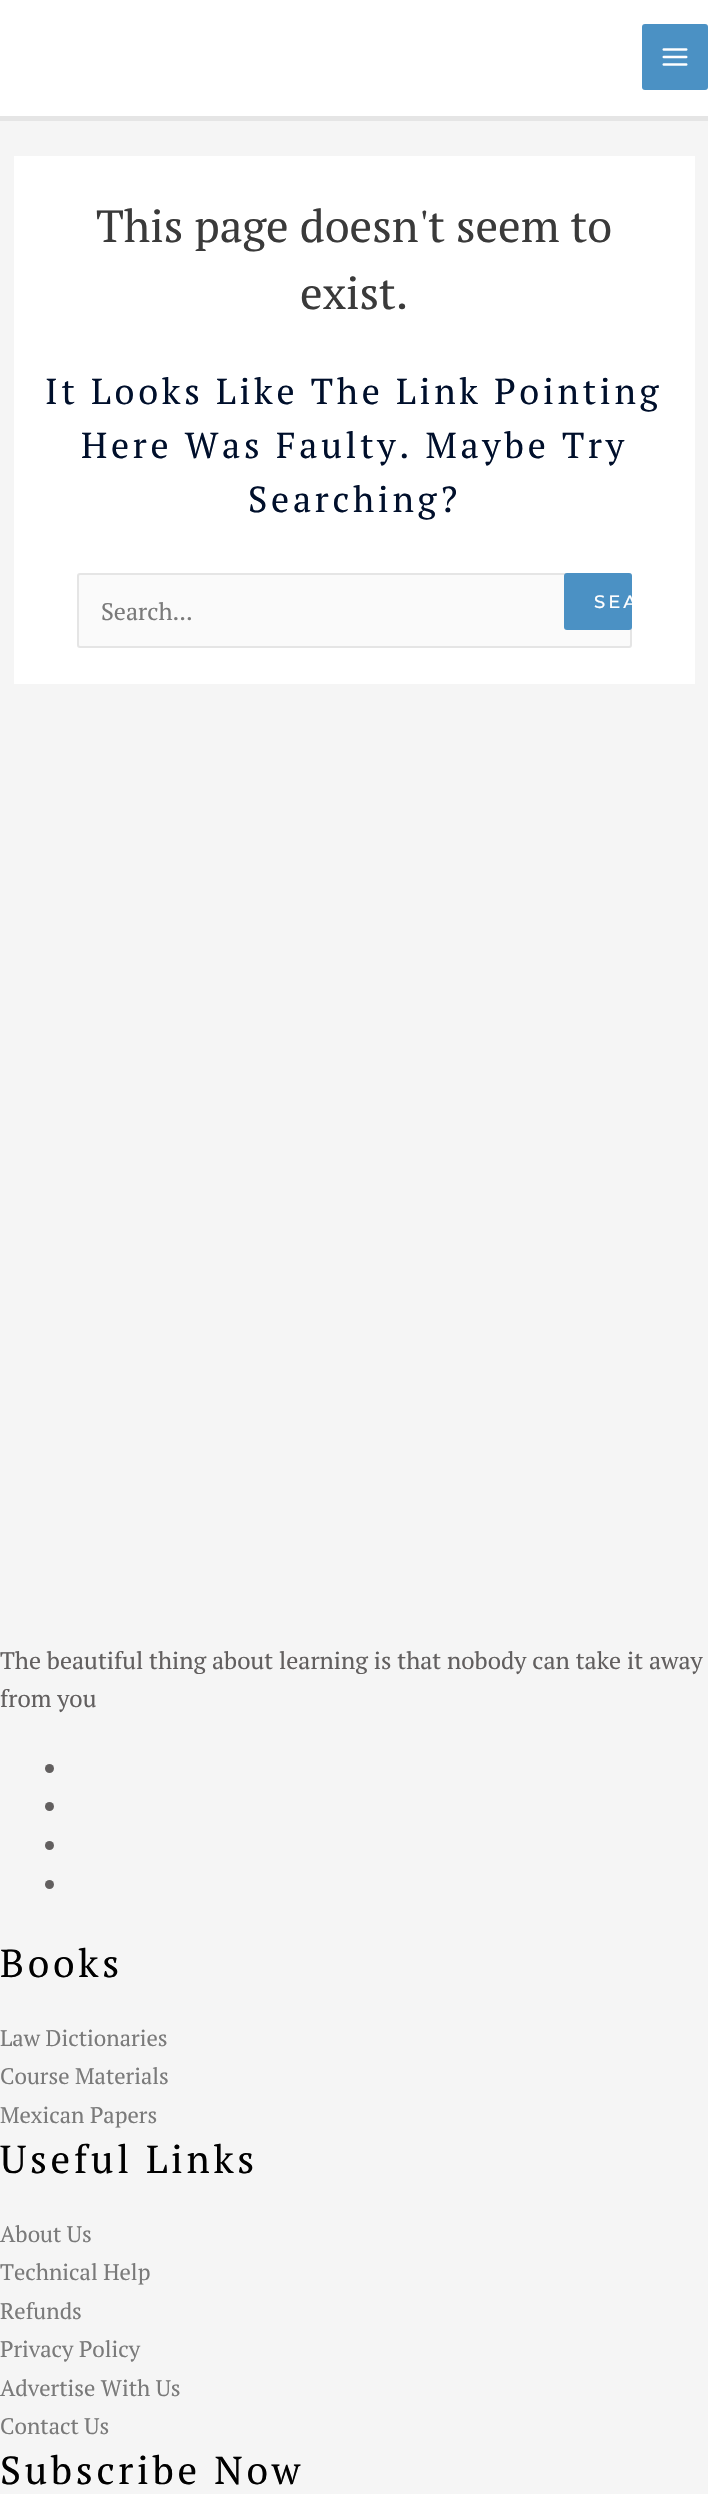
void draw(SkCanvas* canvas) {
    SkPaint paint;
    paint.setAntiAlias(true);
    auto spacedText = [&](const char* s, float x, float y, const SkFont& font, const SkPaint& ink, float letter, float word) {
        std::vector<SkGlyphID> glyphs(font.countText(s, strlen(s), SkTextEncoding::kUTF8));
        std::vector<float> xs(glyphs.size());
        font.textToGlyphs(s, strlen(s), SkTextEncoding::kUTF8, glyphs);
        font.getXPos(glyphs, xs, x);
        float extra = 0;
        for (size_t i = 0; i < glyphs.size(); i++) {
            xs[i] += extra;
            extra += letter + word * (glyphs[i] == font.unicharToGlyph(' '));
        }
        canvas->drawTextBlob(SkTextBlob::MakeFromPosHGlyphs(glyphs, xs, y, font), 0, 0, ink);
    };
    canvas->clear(0xFFF5F5F5);
    paint.setColor(0xFFFFFFFF);
    canvas->drawRect(SkRect::MakeXYWH(0, 0, 708, 116), paint);
    paint.setColor(0xFFE5E5E5);
    canvas->drawRect(SkRect::MakeXYWH(0, 116, 708, 5), paint);
    paint.setColor(0xFF4B91C4);
    canvas->drawRoundRect(SkRect::MakeXYWH(642, 24, 66, 66), 3, 3, paint);
    canvas->drawImageRect(SkImages::DeferredFromEncodedData(SkData::MakeFromFileName("img1.png")), SkRect::MakeXYWH(662, 48, 26, 18), SkSamplingOptions());
    paint.setColor(0xFFFFFFFF);
    canvas->drawRect(SkRect::MakeXYWH(14, 156, 681, 528), paint);
    SkFont font1(fontMgr->matchFamilyStyle("PT Serif", SkFontStyle::Normal()), 45);
    font1.setSubpixel(true);
    paint.setColor(0xFF3A3A3A);
    canvas->drawString("This page doesn't seem to", 96, 242, font1, paint);
    canvas->drawString("exist.", 300, 309, font1, paint);
    SkFont font2(fontMgr->matchFamilyStyle("PT Serif", SkFontStyle::Normal()), 36);
    font2.setSubpixel(true);
    paint.setColor(0xFF000F2B);
    spacedText("It Looks Like The Link Pointing", 45, 404, font2, paint, 3.75f, 0);
    spacedText("Here Was Faulty. Maybe Try", 81, 458, font2, paint, 3.75f, 0);
    spacedText("Searching?", 248, 512, font2, paint, 3.75f, 0);
    paint.setColor(0xFFFAFAFA);
    canvas->drawRoundRect(SkRect::MakeXYWH(78, 574, 553, 73), 2, 2, paint);
    paint.setStyle(SkPaint::kStroke_Style);
    paint.setStrokeWidth(2);
    paint.setColor(0xFFE5E5E5);
    canvas->drawRoundRect(SkRect::MakeXYWH(78, 574, 553, 73), 2, 2, paint);
    SkFont font3(fontMgr->matchFamilyStyle("PT Serif", SkFontStyle::Normal()), 24);
    font3.setSubpixel(true);
    paint.setStyle(SkPaint::kFill_Style);
    paint.setColor(0xFF7A7A7A);
    canvas->drawString("Search...", 101, 620, font3, paint);
    paint.setColor(0xFF4B91C4);
    canvas->drawRoundRect(SkRect::MakeXYWH(564, 573, 68, 57), 3, 3, paint);
    canvas->save();
    canvas->clipPath(SkPathBuilder().moveTo(567, 573).lineTo(629, 573).cubicTo(630.5f, 573, 632, 574.5f, 632, 576).lineTo(632, 627).cubicTo(632, 628.5f, 630.5f, 630, 629, 630).lineTo(567, 630).cubicTo(565.5f, 630, 564, 628.5f, 564, 627).lineTo(564, 576).cubicTo(564, 574.5f, 565.5f, 573, 567, 573).close().detach(), true);
    SkFont font4(fontMgr->matchFamilyStyle("Montserrat", SkFontStyle(100, SkFontStyle::kNormal_Width, SkFontStyle::kUpright_Slant)), 18);
    font4.setSubpixel(true);
    paint.setColor(0xFFFFFFFF);
    spacedText("SEA", 594, 608, font4, paint, 3, 0);
    canvas->restore();
    paint.setColor(0xFF625F5F);
    canvas->drawString("The beautiful thing about learning is that nobody can take it away", 0, 1669, font3, paint);
    canvas->drawString("from you", 0, 1707, font3, paint);
    canvas->drawCircle(49.5f, 1768.5f, 4.5f, paint);
    canvas->drawCircle(49.5f, 1806.5f, 4.5f, paint);
    canvas->drawCircle(49.5f, 1845.5f, 4.5f, paint);
    canvas->drawCircle(49.5f, 1884.5f, 4.5f, paint);
    SkFont font5(fontMgr->matchFamilyStyle("PT Serif", SkFontStyle::Normal()), 39);
    font5.setSubpixel(true);
    paint.setColor(0xFF000000);
    spacedText("Books", 0, 1977, font5, paint, 3.75f, 0);
    SkFont font6(fontMgr->matchFamilyStyle("PT Serif", SkFontStyle::Normal()), 22.5f);
    font6.setSubpixel(true);
    paint.setColor(0xFF7A7A7A);
    canvas->drawString("Law Dictionaries", 0, 2046, font6, paint);
    canvas->drawString("Course Materials", 0, 2084, font6, paint);
    canvas->drawString("Mexican Papers", 0, 2123, font6, paint);
    paint.setColor(0xFF000000);
    spacedText("Useful Links", 0, 2173, font5, paint, 3.75f, 0);
    paint.setColor(0xFF7A7A7A);
    canvas->drawString("About Us", 0, 2242, font6, paint);
    canvas->drawString("Technical Help", 0, 2280, font6, paint);
    canvas->drawString("Refunds", 0, 2319, font6, paint);
    canvas->drawString("Privacy Policy", 0, 2357, font6, paint);
    canvas->drawString("Advertise With Us", 0, 2396, font6, paint);
    canvas->drawString("Contact Us", 0, 2434, font6, paint);
    paint.setColor(0xFF000000);
    spacedText("Subscribe Now", 0, 2484, font5, paint, 3.75f, 0);
}
